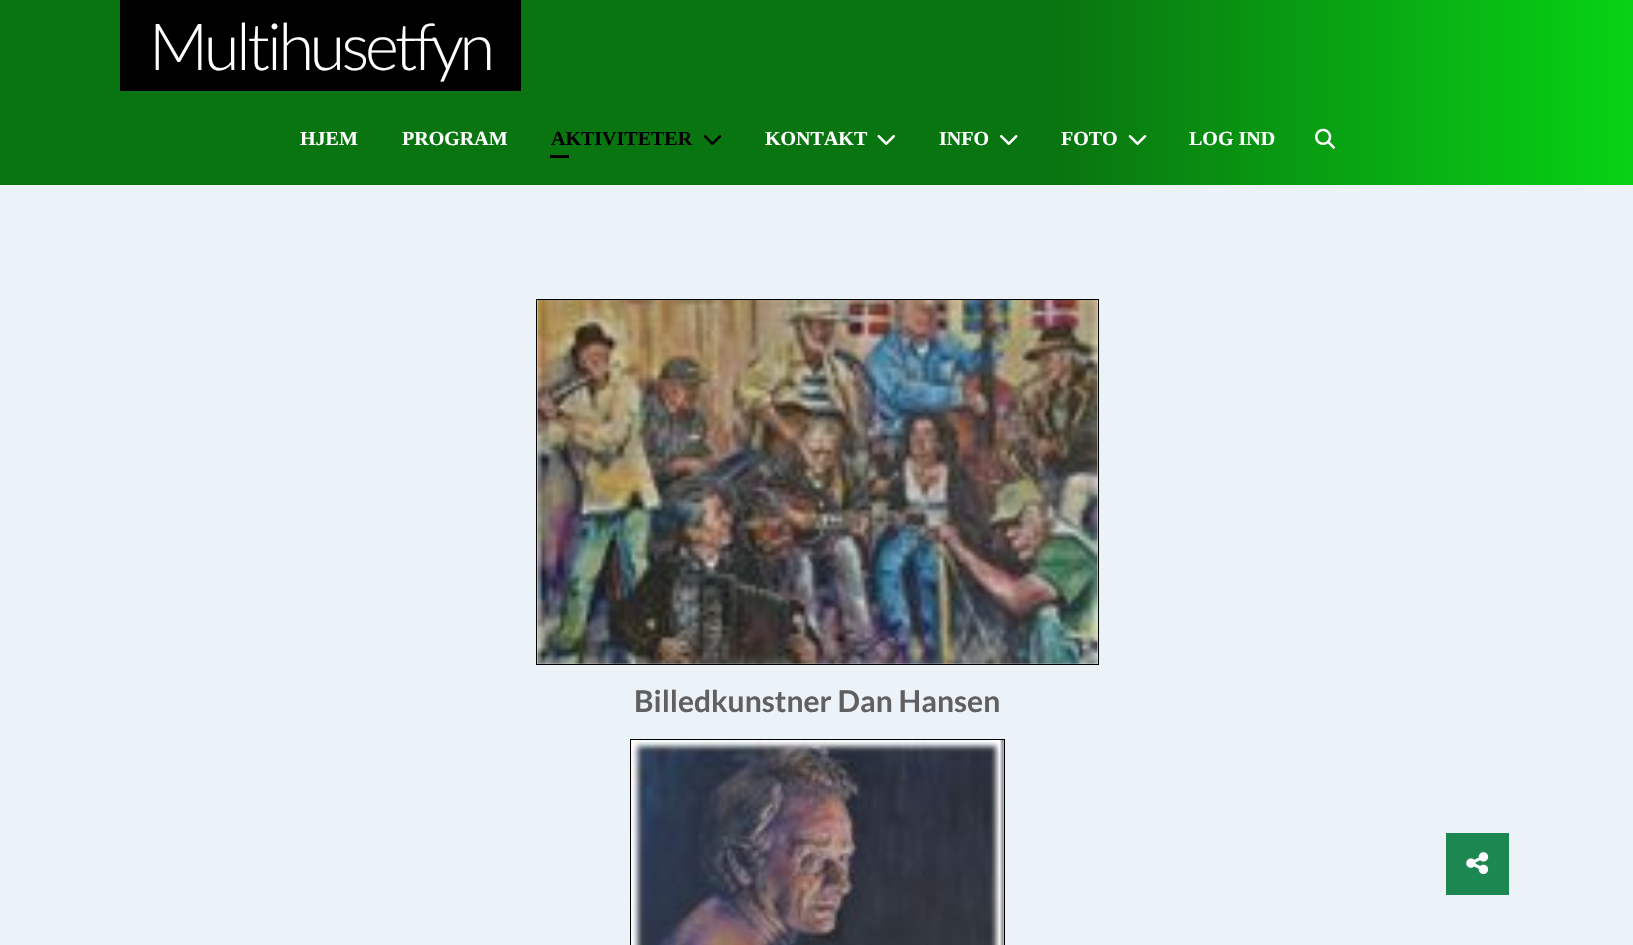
void draw(SkCanvas* canvas) {
    SkPaint paint;
    paint.setAntiAlias(true);
    auto spacedText = [&](const char* s, float x, float y, const SkFont& font, const SkPaint& ink, float letter, float word) {
        std::vector<SkGlyphID> glyphs(font.countText(s, strlen(s), SkTextEncoding::kUTF8));
        std::vector<float> xs(glyphs.size());
        font.textToGlyphs(s, strlen(s), SkTextEncoding::kUTF8, glyphs);
        font.getXPos(glyphs, xs, x);
        float extra = 0;
        for (size_t i = 0; i < glyphs.size(); i++) {
            xs[i] += extra;
            extra += letter + word * (glyphs[i] == font.unicharToGlyph(' '));
        }
        canvas->drawTextBlob(SkTextBlob::MakeFromPosHGlyphs(glyphs, xs, y, font), 0, 0, ink);
    };
    canvas->clear(0xFFEBF2F8);
    {
        const SkColor colors[] = {0xFF097510, 0xFF097510, 0xFF07D314};
        const float stops[] = {0, 0.65f, 1};
        const SkPoint ends[] = {{0, 93}, {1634, 92}};
        paint.setShader(SkGradientShader::MakeLinear(ends, colors, stops, 3, SkTileMode::kClamp));
        paint.setAlpha(255);
    }
    canvas->drawRect(SkRect::MakeXYWH(0, 0, 1633, 185), paint);
    paint.setShader(nullptr);
    paint.setColor(0xFF000000);
    canvas->drawRect(SkRect::MakeXYWH(120, 0, 401, 91), paint);
    SkFont font1(fontMgr->matchFamilyStyle("Lato", SkFontStyle(300, SkFontStyle::kNormal_Width, SkFontStyle::kUpright_Slant)), 65);
    font1.setSubpixel(true);
    paint.setColor(0xFFFFFFFF);
    spacedText("Multihusetfyn", 149, 70, font1, paint, -3.75f, 0);
    SkFont font2(fontMgr->matchFamilyStyle("Liberation Serif", SkFontStyle::Bold()), 20);
    font2.setSubpixel(true);
    canvas->drawString("HJEM", 300, 145, font2, paint);
    canvas->drawString("PROGRAM", 402, 145, font2, paint);
    paint.setColor(0xFF000000);
    canvas->drawString("AKTIVITETER", 551, 145, font2, paint);
    canvas->drawRect(SkRect::MakeXYWH(550, 155, 19, 3), paint);
    canvas->drawImageRect(SkImages::DeferredFromEncodedData(SkData::MakeFromFileName("img1.png")), SkRect::MakeXYWH(703, 135, 19, 10), SkSamplingOptions());
    paint.setColor(0xFFFFFFFF);
    canvas->drawString("KONTAKT", 765, 145, font2, paint);
    canvas->drawImageRect(SkImages::DeferredFromEncodedData(SkData::MakeFromFileName("img2.png")), SkRect::MakeXYWH(877, 135, 18, 10), SkSamplingOptions());
    canvas->drawString("INFO", 939, 145, font2, paint);
    canvas->drawImageRect(SkImages::DeferredFromEncodedData(SkData::MakeFromFileName("img3.png")), SkRect::MakeXYWH(1000, 135, 18, 10), SkSamplingOptions());
    canvas->drawString("FOTO", 1061, 145, font2, paint);
    canvas->drawImageRect(SkImages::DeferredFromEncodedData(SkData::MakeFromFileName("img4.png")), SkRect::MakeXYWH(1128, 135, 19, 10), SkSamplingOptions());
    canvas->drawString("LOG IND", 1189, 145, font2, paint);
    canvas->drawImageRect(SkImages::DeferredFromEncodedData(SkData::MakeFromFileName("img5.png")), SkRect::MakeXYWH(1315, 128, 20, 21), SkSamplingOptions());
    paint.setStyle(SkPaint::kStroke_Style);
    paint.setStrokeWidth(1);
    paint.setColor(0xFF000000);
    canvas->drawRect(SkRect::MakeXYWH(536.5f, 299.5f, 562, 365), paint);
    canvas->drawImageRect(SkImages::DeferredFromEncodedData(SkData::MakeFromFileName("img6.png")), SkRect::MakeXYWH(537, 300, 561, 364), SkSamplingOptions());
    SkFont font3(fontMgr->matchFamilyStyle("Lato", SkFontStyle::Bold()), 30);
    font3.setSubpixel(true);
    paint.setStyle(SkPaint::kFill_Style);
    paint.setColor(0xFF616060);
    canvas->drawString("Billedkunstner Dan Hansen", 634, 712, font3, paint);
    paint.setStyle(SkPaint::kStroke_Style);
    paint.setColor(0xFF000000);
    canvas->drawRect(SkRect::MakeXYWH(630.5f, 739.5f, 374, 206), paint);
    canvas->drawImageRect(SkImages::DeferredFromEncodedData(SkData::MakeFromFileName("img7.png")), SkRect::MakeXYWH(631, 740, 373, 205), SkSamplingOptions());
    paint.setStyle(SkPaint::kFill_Style);
    paint.setColor(0xFF1D8752);
    canvas->drawRect(SkRect::MakeXYWH(1446, 833, 63, 62), paint);
    canvas->drawImageRect(SkImages::DeferredFromEncodedData(SkData::MakeFromFileName("img8.png")), SkRect::MakeXYWH(1466, 852, 23, 23), SkSamplingOptions());
}
